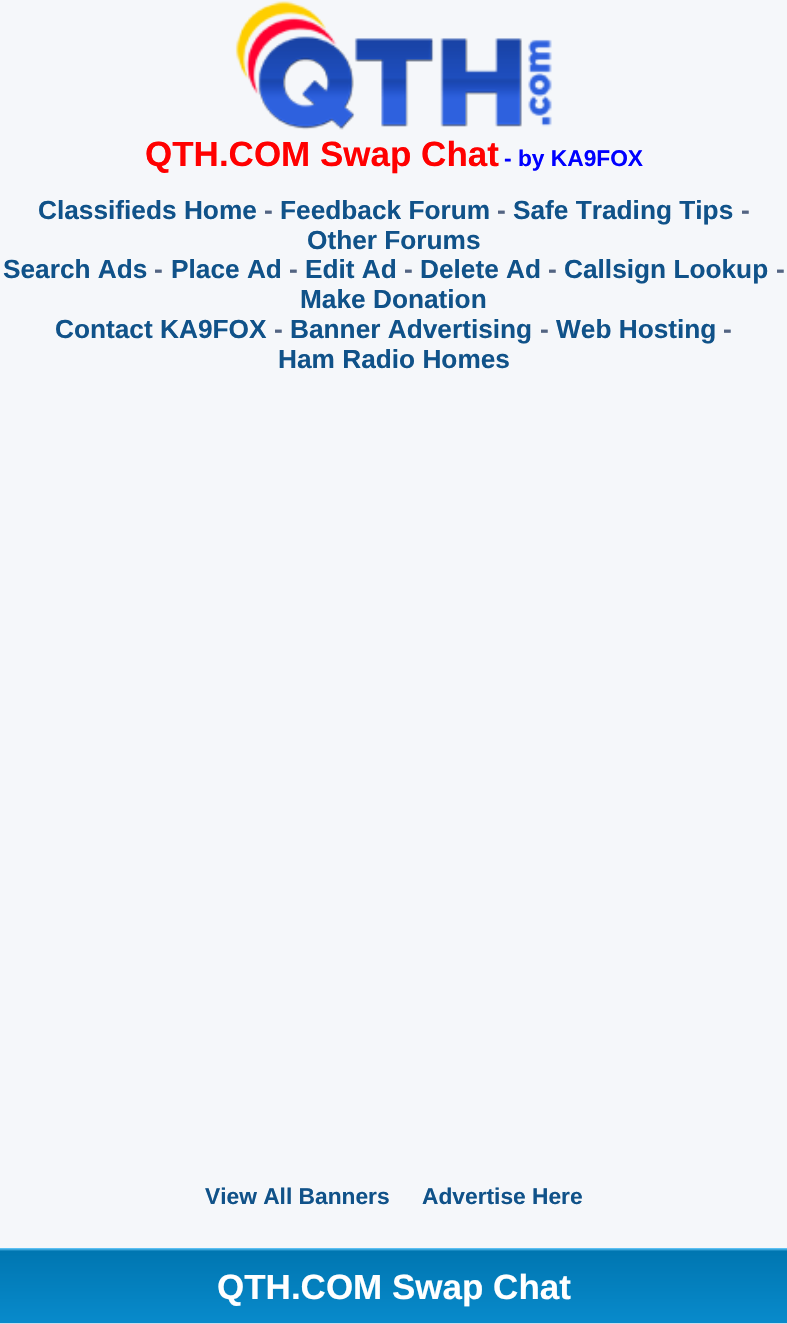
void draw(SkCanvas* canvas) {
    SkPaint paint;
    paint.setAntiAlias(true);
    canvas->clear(0xFFF5F7FA);
    canvas->drawImageRect(SkImages::DeferredFromEncodedData(SkData::MakeFromFileName("img1.png")), SkRect::MakeXYWH(235, 1, 317, 129), SkSamplingOptions());
    SkFont font1(fontMgr->matchFamilyStyle("Liberation Sans", SkFontStyle::Bold()), 35);
    font1.setSubpixel(true);
    paint.setColor(0xFFFF0000);
    canvas->drawString("QTH.COM Swap Chat", 145, 166, font1, paint);
    SkFont font2(fontMgr->matchFamilyStyle("Liberation Sans", SkFontStyle::Bold()), 22.75f);
    font2.setSubpixel(true);
    paint.setColor(0xFF0000FF);
    canvas->drawString("- by KA9FOX", 504, 166, font2, paint);
    SkFont font3(fontMgr->matchFamilyStyle("Liberation Sans", SkFontStyle::Bold()), 26.25f);
    font3.setSubpixel(true);
    paint.setColor(0xFF105289);
    canvas->drawString("Classifieds Home", 38, 219, font3, paint);
    paint.setColor(0xFF536482);
    canvas->drawString("-", 264, 219, font3, paint);
    paint.setColor(0xFF105289);
    canvas->drawString("Feedback Forum", 280, 219, font3, paint);
    paint.setColor(0xFF536482);
    canvas->drawString("-", 497, 219, font3, paint);
    paint.setColor(0xFF105289);
    canvas->drawString("Safe Trading Tips", 513, 219, font3, paint);
    paint.setColor(0xFF536482);
    canvas->drawString("-", 741, 219, font3, paint);
    paint.setColor(0xFF105289);
    canvas->drawString("Other Forums", 307, 249, font3, paint);
    canvas->drawString("Search Ads", 3, 278, font3, paint);
    paint.setColor(0xFF536482);
    canvas->drawString("-", 154, 278, font3, paint);
    paint.setColor(0xFF105289);
    canvas->drawString("Place Ad", 171, 278, font3, paint);
    paint.setColor(0xFF536482);
    canvas->drawString("-", 289, 278, font3, paint);
    paint.setColor(0xFF105289);
    canvas->drawString("Edit Ad", 305, 278, font3, paint);
    paint.setColor(0xFF536482);
    canvas->drawString("-", 404, 278, font3, paint);
    paint.setColor(0xFF105289);
    canvas->drawString("Delete Ad", 420, 278, font3, paint);
    paint.setColor(0xFF536482);
    canvas->drawString("-", 548, 278, font3, paint);
    paint.setColor(0xFF105289);
    canvas->drawString("Callsign Lookup", 564, 278, font3, paint);
    paint.setColor(0xFF536482);
    canvas->drawString("-", 776, 278, font3, paint);
    paint.setColor(0xFF105289);
    canvas->drawString("Make Donation", 300, 308, font3, paint);
    canvas->drawString("Contact KA9FOX", 55, 338, font3, paint);
    paint.setColor(0xFF536482);
    canvas->drawString("-", 274, 338, font3, paint);
    paint.setColor(0xFF105289);
    canvas->drawString("Banner Advertising", 290, 338, font3, paint);
    paint.setColor(0xFF536482);
    canvas->drawString("-", 540, 338, font3, paint);
    paint.setColor(0xFF105289);
    canvas->drawString("Web Hosting", 556, 338, font3, paint);
    paint.setColor(0xFF536482);
    canvas->drawString("-", 723, 338, font3, paint);
    paint.setColor(0xFF105289);
    canvas->drawString("Ham Radio Homes", 278, 368, font3, paint);
    canvas->drawString("View All Banners", 205, 1204, font2, paint);
    canvas->drawString("Advertise Here", 422, 1204, font2, paint);
    {
        const SkColor colors[] = {0xFF6ACEFF, 0xFF0076B1, 0xFF12A3EB};
        const float stops[] = {0, 0.02f, 1};
        const SkPoint ends[] = {{394, 1248}, {394, 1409}};
        paint.setShader(SkGradientShader::MakeLinear(ends, colors, stops, 3, SkTileMode::kClamp));
        paint.setAlpha(255);
    }
    canvas->drawRect(SkRect::MakeXYWH(0, 1248, 787, 75), paint);
    paint.setShader(nullptr);
    paint.setColor(0xFFFFFFFF);
    canvas->drawString("QTH.COM Swap Chat", 217, 1299, font1, paint);
    paint.setColor(0xFFCADCEB);
    canvas->drawRect(SkRect::MakeXYWH(0, 1323, 787, 1), paint);
}
